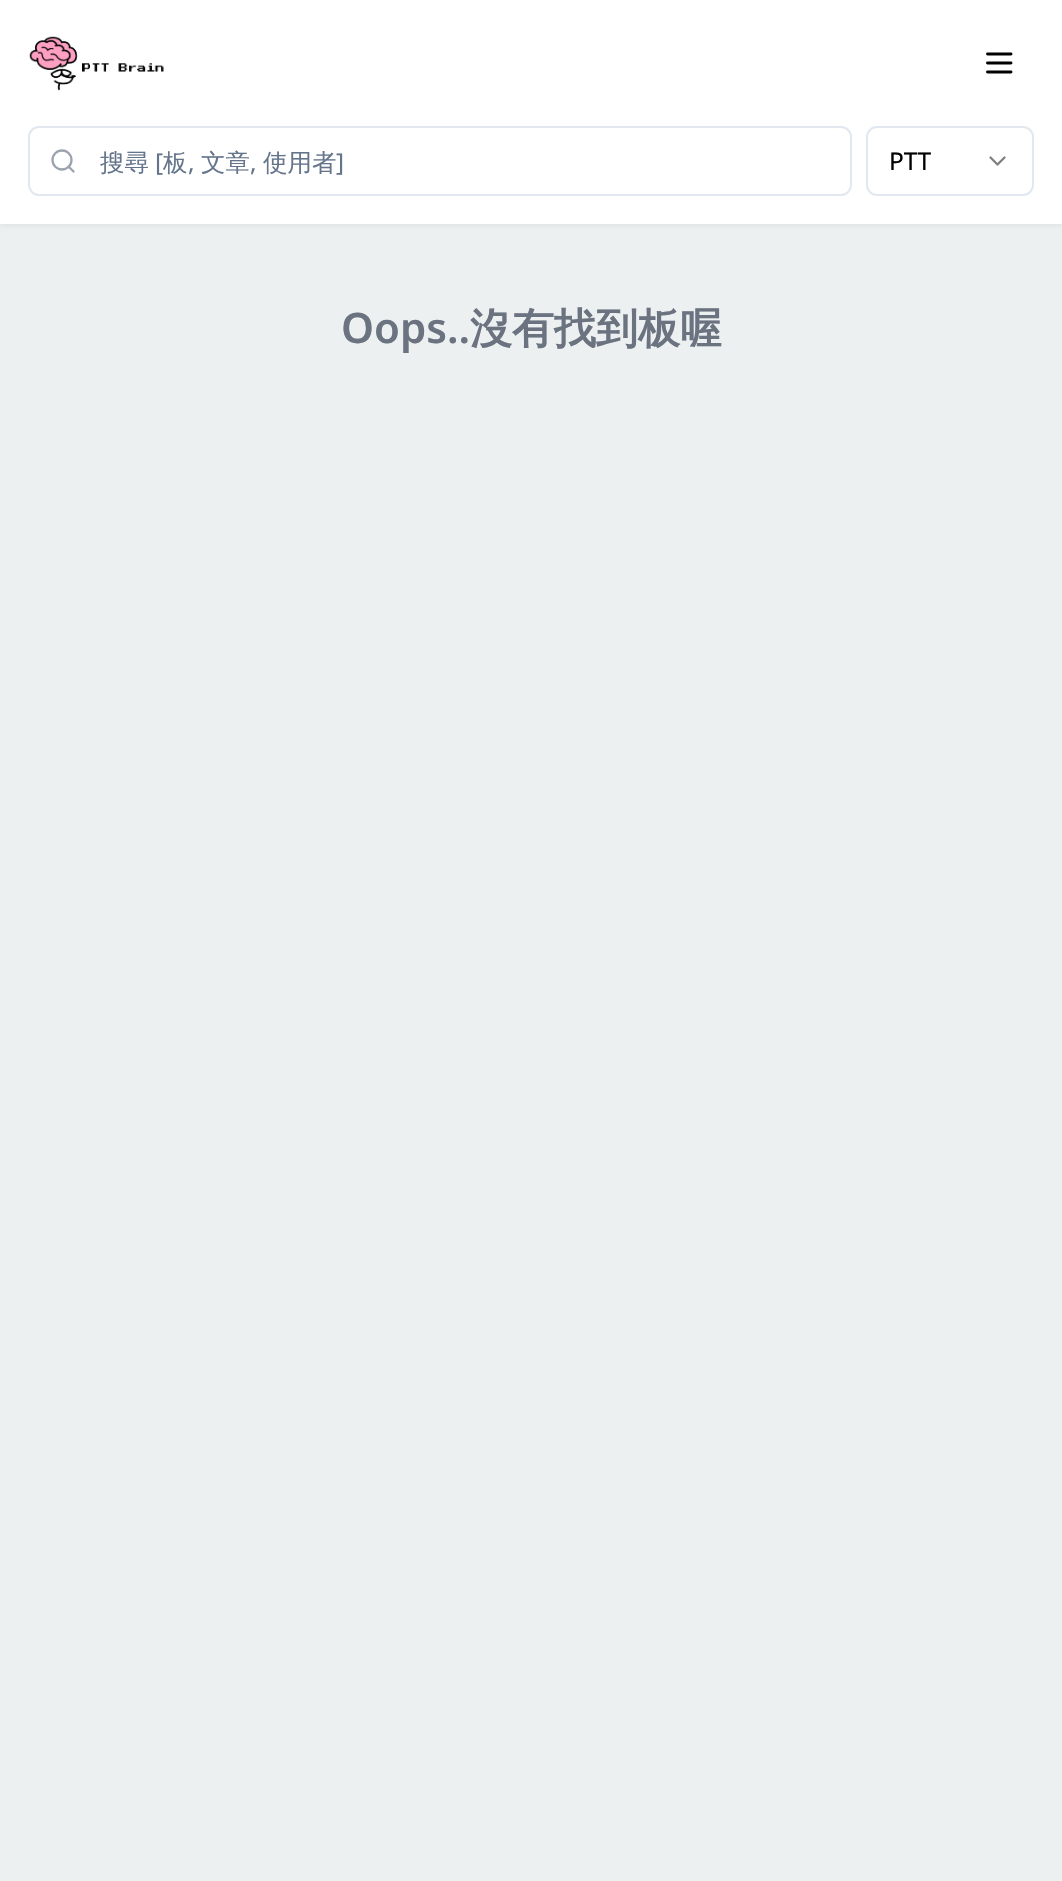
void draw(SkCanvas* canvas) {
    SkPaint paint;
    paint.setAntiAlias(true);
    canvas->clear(0xFFECF0F1);
    paint.setColor(0x0D000000);
    paint.setMaskFilter(SkMaskFilter::MakeBlur(kNormal_SkBlurStyle, 2));
    canvas->drawRect(SkRect::MakeXYWH(0, 2, 1062, 224), paint);
    paint.setMaskFilter(nullptr);
    paint.setColor(0xFFFFFFFF);
    canvas->drawRect(SkRect::MakeXYWH(0, 0, 1062, 224), paint);
    canvas->drawImageRect(SkImages::DeferredFromEncodedData(SkData::MakeFromFileName("img1.png")), SkRect::MakeXYWH(29, 36, 135, 55), SkSamplingOptions());
    paint.setStyle(SkPaint::kStroke_Style);
    paint.setStrokeWidth(2.9f);
    paint.setStrokeCap(SkPaint::kRound_Cap);
    paint.setStrokeJoin(SkPaint::kRound_Join);
    paint.setColor(0xFF000000);
    canvas->drawPath(SkPathBuilder().moveTo(987.5f, 63).lineTo(1011, 63).moveTo(987.5f, 72).lineTo(1011, 72).moveTo(987.5f, 54).lineTo(1011, 54).detach(), paint);
    paint.setStrokeWidth(2);
    paint.setStrokeCap(SkPaint::kButt_Cap);
    paint.setStrokeJoin(SkPaint::kMiter_Join);
    paint.setColor(0xFFE2E8F0);
    canvas->drawRoundRect(SkRect::MakeXYWH(29, 127, 822, 68), 10, 10, paint);
    paint.setStrokeWidth(2.3f);
    paint.setStrokeCap(SkPaint::kRound_Cap);
    paint.setStrokeJoin(SkPaint::kRound_Join);
    paint.setColor(0xFF9CA3AF);
    canvas->drawPath(SkPathBuilder().moveTo(73.5f, 171.5f).lineTo(68.5f, 166.5f).detach(), paint);
    paint.setStrokeCap(SkPaint::kButt_Cap);
    paint.setStrokeJoin(SkPaint::kMiter_Join);
    canvas->drawCircle(62, 160, 9.5f, paint);
    SkFont font1(fontMgr->matchFamilyStyle("WenQuanYi Zen Hei", SkFontStyle(500, SkFontStyle::kNormal_Width, SkFontStyle::kUpright_Slant)), 24.5f);
    font1.setSubpixel(true);
    paint.setStyle(SkPaint::kFill_Style);
    paint.setColor(0xFF64748B);
    canvas->drawString("搜尋", 100, 171, font1, paint);
    SkFont font2(fontMgr->matchFamilyStyle("Noto Sans", SkFontStyle::Normal()), 24.5f);
    font2.setSubpixel(true);
    canvas->drawString("[", 155, 171, font2, paint);
    canvas->drawString("板", 163, 171, font1, paint);
    canvas->drawString(",", 188, 171, font2, paint);
    canvas->drawString("文章", 201, 171, font1, paint);
    canvas->drawString(",", 250, 171, font2, paint);
    canvas->drawString("使用者", 263, 171, font1, paint);
    canvas->drawString("]", 336, 171, font2, paint);
    paint.setStyle(SkPaint::kStroke_Style);
    paint.setStrokeWidth(2);
    paint.setColor(0xFFE2E8F0);
    canvas->drawRoundRect(SkRect::MakeXYWH(867, 127, 166, 68), 10, 10, paint);
    paint.setStyle(SkPaint::kFill_Style);
    paint.setColor(0xFF000000);
    canvas->drawString("PTT", 889, 170, font2, paint);
    paint.setStyle(SkPaint::kStroke_Style);
    paint.setStrokeWidth(2.3f);
    paint.setStrokeCap(SkPaint::kRound_Cap);
    paint.setStrokeJoin(SkPaint::kRound_Join);
    paint.setColor(0xFF808080);
    canvas->drawPath(SkPathBuilder().moveTo(990.5f, 157.5f).lineTo(997.5f, 164.5f).lineTo(1004.5f, 157.5f).detach(), paint);
    SkFont font3(fontMgr->matchFamilyStyle("Noto Sans", SkFontStyle(600, SkFontStyle::kNormal_Width, SkFontStyle::kUpright_Slant)), 42);
    font3.setSubpixel(true);
    paint.setStyle(SkPaint::kFill_Style);
    paint.setColor(0xFF6B7280);
    canvas->drawString("Oops..", 341, 343, font3, paint);
    SkFont font4(fontMgr->matchFamilyStyle("WenQuanYi Zen Hei", SkFontStyle::Bold()), 42);
    font4.setSubpixel(true);
    canvas->drawString("沒有找到板喔", 470, 343, font4, paint);
}
